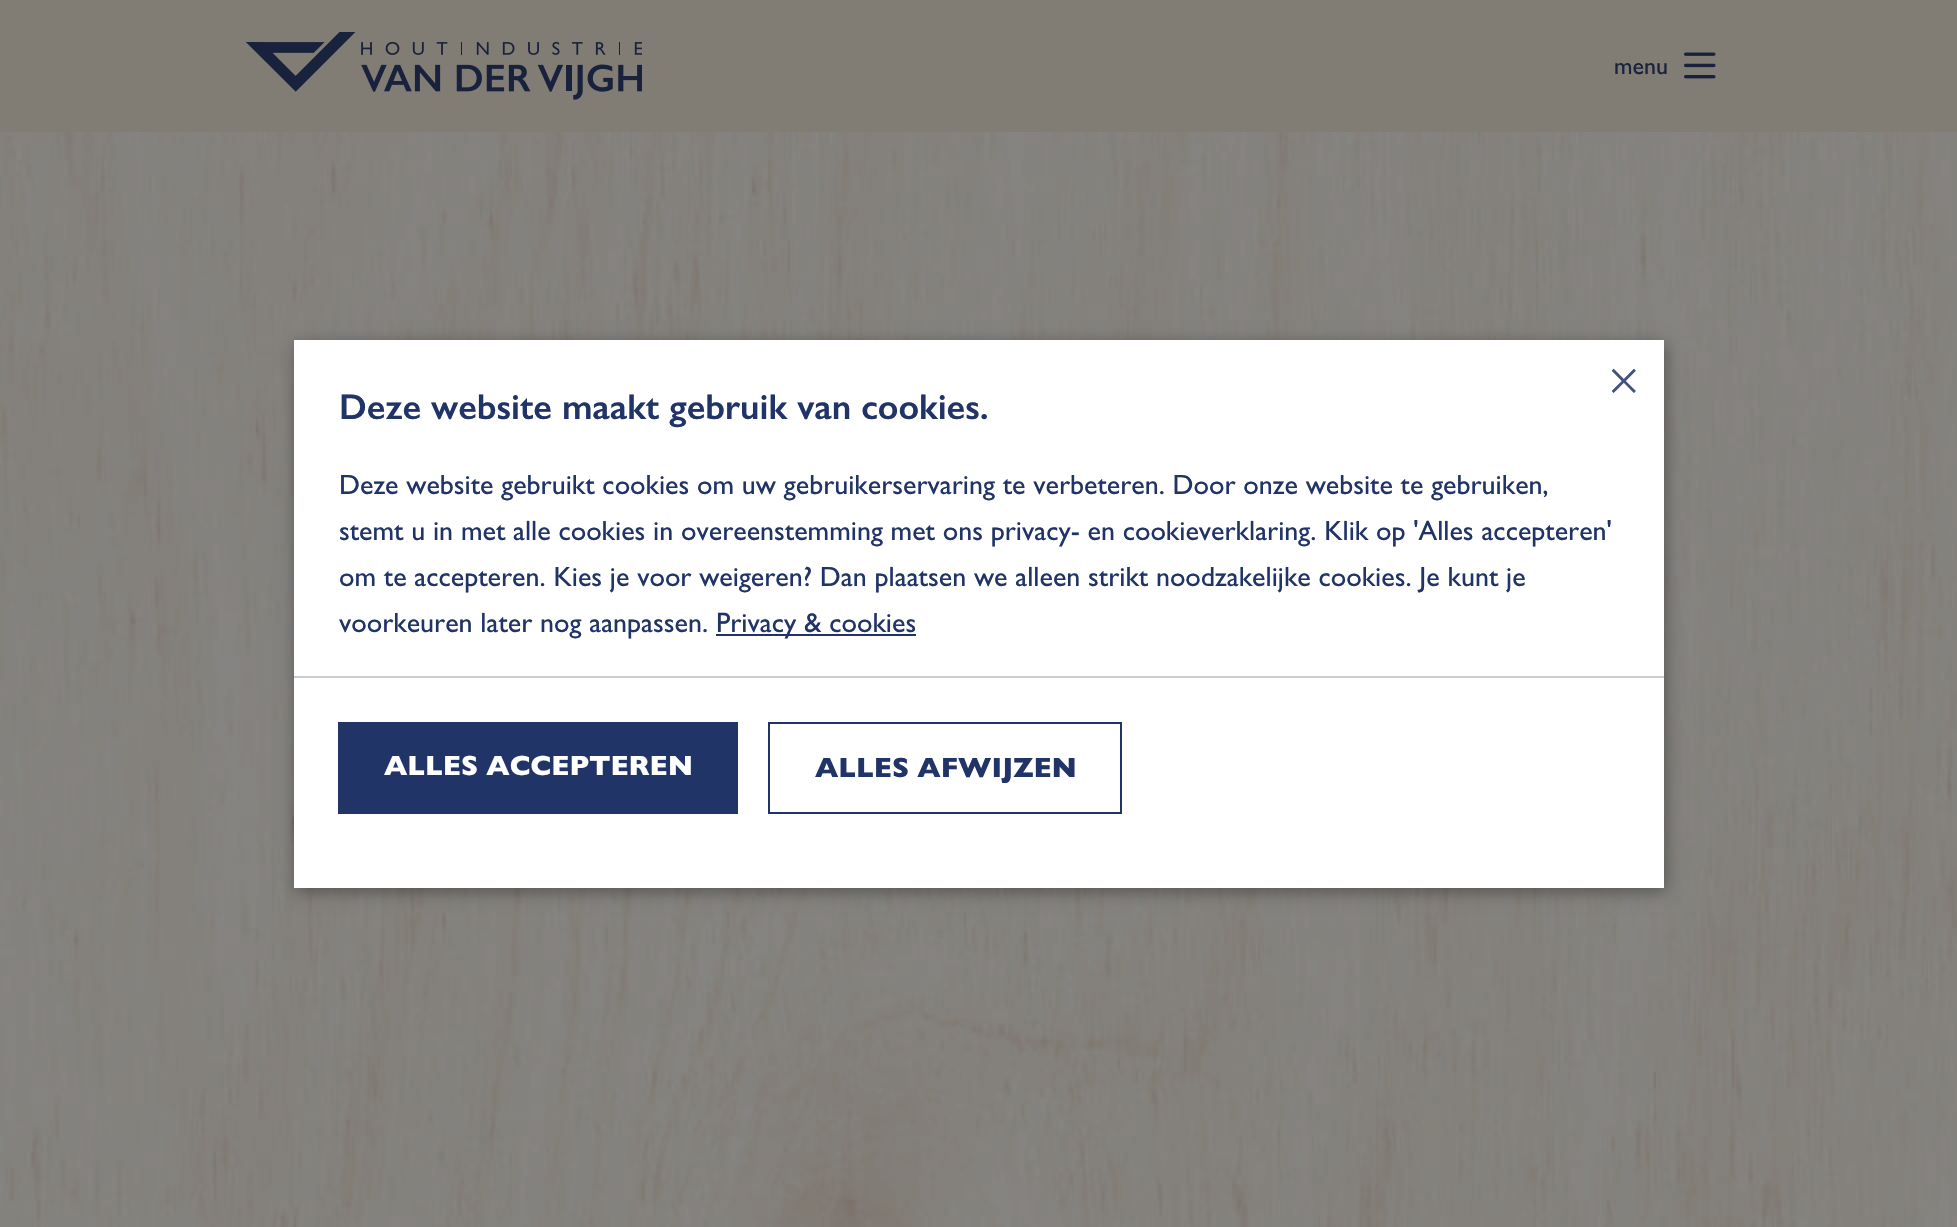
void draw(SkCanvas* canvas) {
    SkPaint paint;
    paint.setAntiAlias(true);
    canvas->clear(0xFFFFFFFF);
    canvas->drawImageRect(SkImages::DeferredFromEncodedData(SkData::MakeFromFileName("img1.png")), SkRect::MakeXYWH(0, 132, 1957, 1095), SkSamplingOptions());
    paint.setColor(0xFF817D75);
    canvas->drawRect(SkRect::MakeXYWH(0, 0, 1957, 132), paint);
    canvas->drawImageRect(SkImages::DeferredFromEncodedData(SkData::MakeFromFileName("img2.png")), SkRect::MakeXYWH(245, 32, 397, 68), SkSamplingOptions());
    SkFont font1(fontMgr->matchFamilyStyle("Gill Sans", SkFontStyle::Normal()), 24);
    font1.setSubpixel(true);
    paint.setColor(0xFF19233C);
    canvas->drawString("menu", 1614, 74, font1, paint);
    canvas->drawImageRect(SkImages::DeferredFromEncodedData(SkData::MakeFromFileName("img3.png")), SkRect::MakeXYWH(1684, 52, 32, 27), SkSamplingOptions());
    paint.setColor(0x59000000);
    paint.setMaskFilter(SkMaskFilter::MakeBlur(kNormal_SkBlurStyle, 8));
    canvas->drawRect(SkRect::MakeXYWH(296, 344, 1370, 548), paint);
    paint.setMaskFilter(nullptr);
    paint.setColor(0xFFFFFFFF);
    canvas->drawRect(SkRect::MakeXYWH(294, 340, 1370, 548), paint);
    SkFont font2(fontMgr->matchFamilyStyle("Gill Sans", SkFontStyle(300, SkFontStyle::kNormal_Width, SkFontStyle::kUpright_Slant)), 60);
    font2.setSubpixel(true);
    paint.setColor(0xFF42527E);
    canvas->drawString("×", 1604, 402, font2, paint);
    SkFont font3(fontMgr->matchFamilyStyle("Gill Sans", SkFontStyle(600, SkFontStyle::kNormal_Width, SkFontStyle::kUpright_Slant)), 36);
    font3.setSubpixel(true);
    paint.setColor(0xFF213467);
    canvas->drawString("Deze website maakt gebruik van cookies.", 339, 419, font3, paint);
    SkFont font4(fontMgr->matchFamilyStyle("Gill Sans", SkFontStyle::Normal()), 28);
    font4.setSubpixel(true);
    canvas->drawString("Deze website gebruikt cookies om uw gebruikerservaring te verbeteren. Door onze website te gebruiken,", 339, 494, font4, paint);
    canvas->drawString("stemt u in met alle cookies in overeenstemming met ons privacy- en cookieverklaring. Klik op 'Alles accepteren'", 339, 540, font4, paint);
    canvas->drawString("om te accepteren. Kies je voor weigeren? Dan plaatsen we alleen strikt noodzakelijke cookies. Je kunt je", 339, 586, font4, paint);
    canvas->drawString("voorkeuren later nog aanpassen.", 339, 632, font4, paint);
    canvas->drawRect(SkRect::MakeXYWH(716, 634, 200, 2), paint);
    canvas->drawString("Privacy & cookies", 716, 632, font4, paint);
    paint.setColor(0xFFC8CCD9);
    canvas->drawRect(SkRect::MakeXYWH(294, 676, 1370, 2), paint);
    paint.setColor(0xFF213467);
    canvas->drawRect(SkRect::MakeXYWH(338, 722, 400, 92), paint);
    SkFont font5(fontMgr->matchFamilyStyle("Gill Sans", SkFontStyle::Bold()), 28);
    font5.setSubpixel(true);
    paint.setColor(0xFFFFFFFF);
    canvas->drawString("ALLES ACCEPTEREN", 384, 775, font5, paint);
    paint.setStyle(SkPaint::kStroke_Style);
    paint.setStrokeWidth(2);
    paint.setColor(0xFF213467);
    canvas->drawRect(SkRect::MakeXYWH(769, 723, 352, 90), paint);
    paint.setStyle(SkPaint::kFill_Style);
    canvas->drawString("ALLES AFWIJZEN", 815, 777, font5, paint);
}
